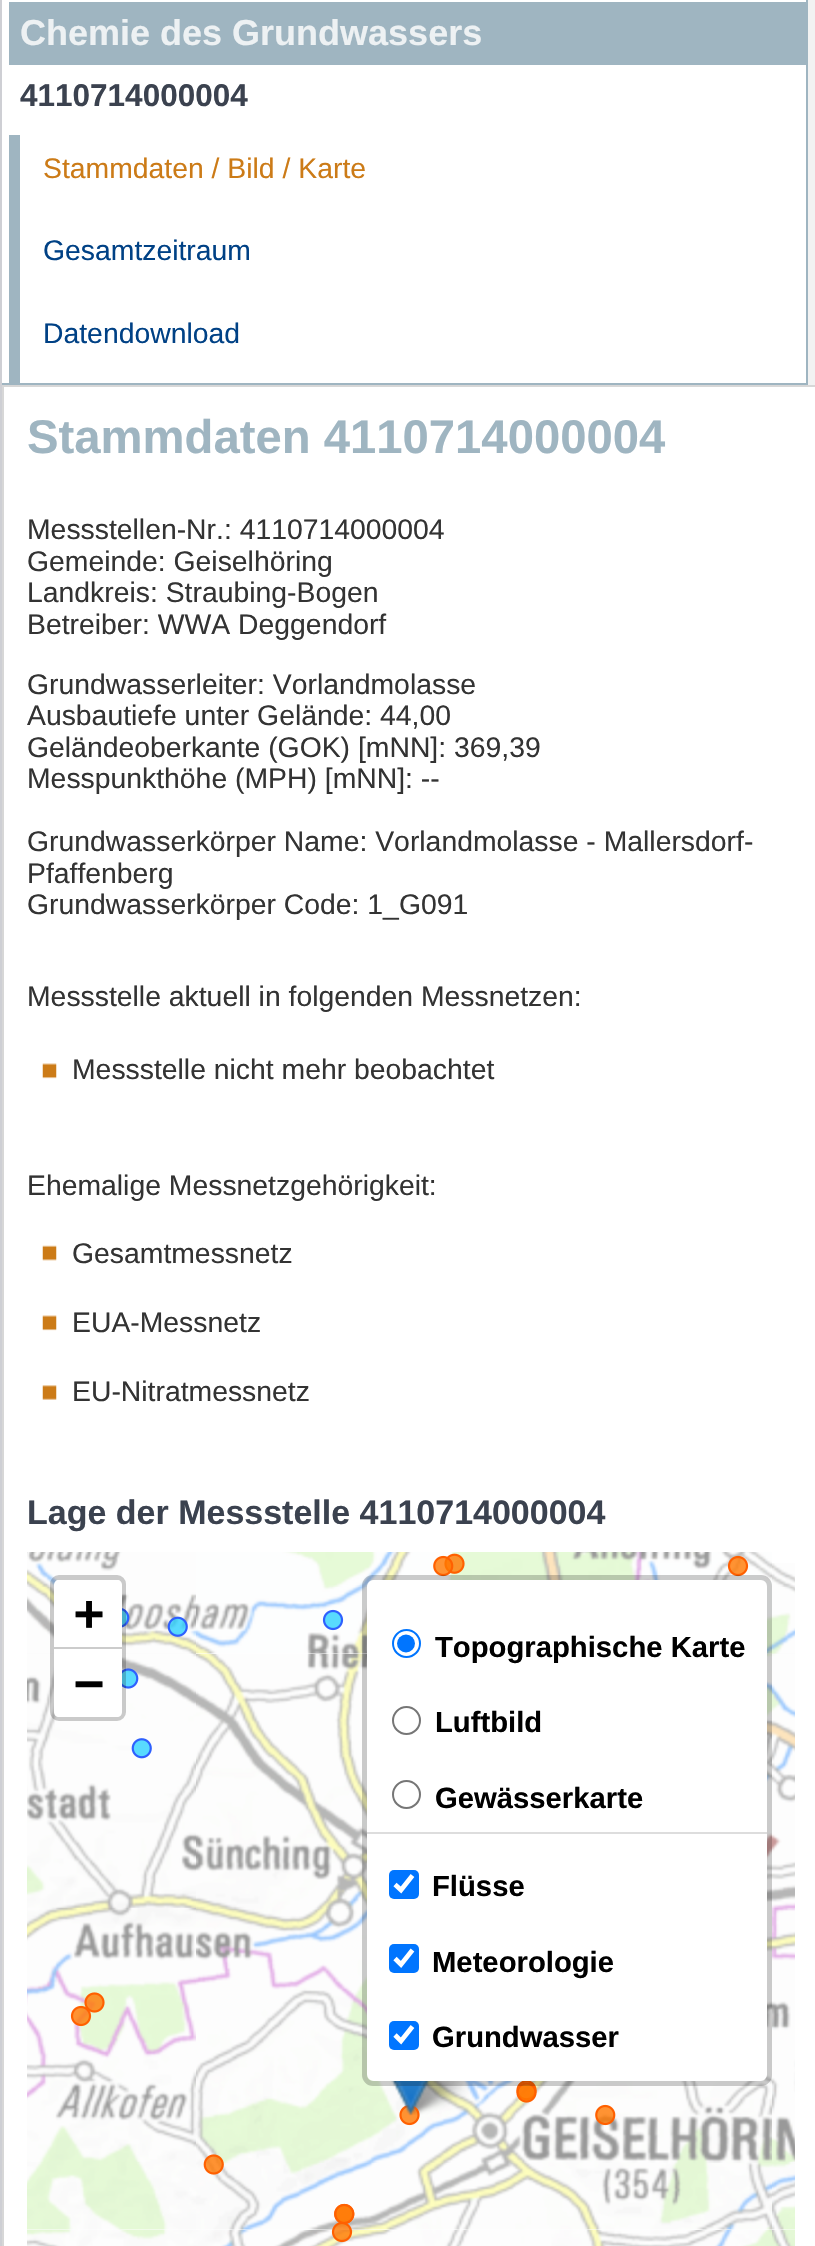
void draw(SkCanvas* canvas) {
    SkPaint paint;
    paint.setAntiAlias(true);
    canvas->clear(0xFFCECFD4);
    paint.setColor(0xFFF2F2F2);
    canvas->drawRect(SkRect::MakeXYWH(808, 0, 7, 385), paint);
    paint.setColor(0xFFFFFFFF);
    canvas->drawRect(SkRect::MakeXYWH(2, 0, 804, 383), paint);
    paint.setColor(0xFF9FB5C1);
    canvas->drawRect(SkRect::MakeXYWH(806, 0, 2, 385), paint);
    canvas->drawRect(SkRect::MakeXYWH(2, 383, 806, 2), paint);
    canvas->drawRect(SkRect::MakeXYWH(9, 2, 797, 63), paint);
    SkFont font1(fontMgr->matchFamilyStyle("Liberation Sans", SkFontStyle::Bold()), 36);
    font1.setSubpixel(true);
    paint.setColor(0xFFEDF1F3);
    canvas->drawString("Chemie des Grundwassers", 20, 45, font1, paint);
    SkFont font2(fontMgr->matchFamilyStyle("Liberation Sans", SkFontStyle::Bold()), 31.5f);
    font2.setSubpixel(true);
    paint.setColor(0xFF3B424F);
    canvas->drawString("4110714000004", 20, 106, font2, paint);
    paint.setColor(0xFF9FB5C1);
    canvas->drawRect(SkRect::MakeXYWH(9, 135, 11, 248), paint);
    SkFont font3(fontMgr->matchFamilyStyle("Liberation Sans", SkFontStyle::Normal()), 28.35f);
    font3.setSubpixel(true);
    paint.setColor(0xFFCC7B17);
    canvas->drawString("Stammdaten / Bild / Karte", 43, 178, font3, paint);
    paint.setColor(0xFF004185);
    canvas->drawString("Gesamtzeitraum", 43, 260, font3, paint);
    canvas->drawString("Datendownload", 43, 343, font3, paint);
    paint.setColor(0xFFFFFFFF);
    canvas->drawRect(SkRect::MakeXYWH(3, 386, 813, 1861), paint);
    paint.setStyle(SkPaint::kStroke_Style);
    paint.setStrokeWidth(2);
    paint.setColor(0xFFD7D7D7);
    canvas->drawRect(SkRect::MakeXYWH(3, 386, 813, 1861), paint);
    SkFont font4(fontMgr->matchFamilyStyle("Liberation Sans", SkFontStyle::Bold()), 47.25f);
    font4.setSubpixel(true);
    paint.setStyle(SkPaint::kFill_Style);
    paint.setColor(0xFF9FB5C1);
    canvas->drawString("Stammdaten 4110714000004", 27, 453, font4, paint);
    paint.setColor(0xFF333333);
    canvas->drawString("Messstellen-Nr.: 4110714000004", 27, 539, font3, paint);
    canvas->drawString("Gemeinde: Geiselhöring", 27, 571, font3, paint);
    canvas->drawString("Landkreis: Straubing-Bogen", 27, 602, font3, paint);
    canvas->drawString("Betreiber: WWA Deggendorf", 27, 634, font3, paint);
    canvas->drawString("Grundwasserleiter: Vorlandmolasse", 27, 694, font3, paint);
    canvas->drawString("Ausbautiefe unter Gelände: 44,00", 27, 725, font3, paint);
    canvas->drawString("Geländeoberkante (GOK) [mNN]: 369,39", 27, 757, font3, paint);
    canvas->drawString("Messpunkthöhe (MPH) [mNN]: --", 27, 788, font3, paint);
    canvas->drawString("Grundwasserkörper Name: Vorlandmolasse - Mallersdorf-", 27, 851, font3, paint);
    canvas->drawString("Pfaffenberg", 27, 883, font3, paint);
    canvas->drawString("Grundwasserkörper Code: 1_G091", 27, 914, font3, paint);
    canvas->drawString("Messstelle aktuell in folgenden Messnetzen:", 27, 1006, font3, paint);
    canvas->drawImageRect(SkImages::DeferredFromEncodedData(SkData::MakeFromFileName("img1.png")), SkRect::MakeXYWH(42, 1063, 15, 16), SkSamplingOptions());
    canvas->drawString("Messstelle nicht mehr beobachtet", 72, 1079, font3, paint);
    canvas->drawString("Ehemalige Messnetzgehörigkeit:", 27, 1195, font3, paint);
    canvas->drawImageRect(SkImages::DeferredFromEncodedData(SkData::MakeFromFileName("img2.png")), SkRect::MakeXYWH(42, 1245, 15, 16), SkSamplingOptions());
    canvas->drawString("Gesamtmessnetz", 72, 1263, font3, paint);
    canvas->drawImageRect(SkImages::DeferredFromEncodedData(SkData::MakeFromFileName("img3.png")), SkRect::MakeXYWH(42, 1315, 15, 16), SkSamplingOptions());
    canvas->drawString("EUA-Messnetz", 72, 1332, font3, paint);
    canvas->drawImageRect(SkImages::DeferredFromEncodedData(SkData::MakeFromFileName("img4.png")), SkRect::MakeXYWH(42, 1385, 15, 15), SkSamplingOptions());
    canvas->drawString("EU-Nitratmessnetz", 72, 1401, font3, paint);
    SkFont font5(fontMgr->matchFamilyStyle("Liberation Sans", SkFontStyle::Bold()), 34);
    font5.setSubpixel(true);
    paint.setColor(0xFF3B424F);
    canvas->drawString("Lage der Messstelle 4110714000004", 27, 1524, font5, paint);
    canvas->drawImageRect(SkImages::DeferredFromEncodedData(SkData::MakeFromFileName("img8.png")), SkRect::MakeXYWH(27, 1653, 169, 577), SkSamplingOptions());
    canvas->drawImageRect(SkImages::DeferredFromEncodedData(SkData::MakeFromFileName("img5.png")), SkRect::MakeXYWH(27, 1552, 169, 102), SkSamplingOptions());
    canvas->drawImageRect(SkImages::DeferredFromEncodedData(SkData::MakeFromFileName("img6.png")), SkRect::MakeXYWH(196, 1552, 576, 102), SkSamplingOptions());
    canvas->drawImageRect(SkImages::DeferredFromEncodedData(SkData::MakeFromFileName("img10.png")), SkRect::MakeXYWH(772, 1653, 23, 577), SkSamplingOptions());
    canvas->drawImageRect(SkImages::DeferredFromEncodedData(SkData::MakeFromFileName("img7.png")), SkRect::MakeXYWH(772, 1563, 23, 91), SkSamplingOptions());
    canvas->drawImageRect(SkImages::DeferredFromEncodedData(SkData::MakeFromFileName("img9.png")), SkRect::MakeXYWH(196, 1654, 576, 576), SkSamplingOptions());
    canvas->drawImageRect(SkImages::DeferredFromEncodedData(SkData::MakeFromFileName("img11.png")), SkRect::MakeXYWH(27, 2230, 169, 16), SkSamplingOptions());
    canvas->drawImageRect(SkImages::DeferredFromEncodedData(SkData::MakeFromFileName("img12.png")), SkRect::MakeXYWH(196, 2230, 576, 16), SkSamplingOptions());
    canvas->drawImageRect(SkImages::DeferredFromEncodedData(SkData::MakeFromFileName("img13.png")), SkRect::MakeXYWH(772, 2230, 23, 16), SkSamplingOptions());
    canvas->drawImageRect(SkImages::DeferredFromEncodedData(SkData::MakeFromFileName("img16.png")), SkRect::MakeXYWH(403, 2081, 66, 34), SkSamplingOptions());
    canvas->drawImageRect(SkImages::DeferredFromEncodedData(SkData::MakeFromFileName("img14.png")), SkRect::MakeXYWH(70, 1553, 679, 690), SkSamplingOptions());
    canvas->drawImageRect(SkImages::DeferredFromEncodedData(SkData::MakeFromFileName("img15.png")), SkRect::MakeXYWH(391, 2081, 40, 35), SkSamplingOptions());
    paint.setStyle(SkPaint::kStroke_Style);
    paint.setStrokeWidth(5);
    paint.setColor(0x33000000);
    canvas->drawRoundRect(SkRect::MakeXYWH(52.5f, 1577.5f, 71, 141), 6.5f, 6.5f, paint);
    paint.setStyle(SkPaint::kFill_Style);
    paint.setColor(0xFFFFFFFF);
    canvas->drawPath(SkPathBuilder().moveTo(59, 1580).lineTo(117, 1580).cubicTo(120, 1580, 122, 1582, 122, 1585).lineTo(122, 1649).lineTo(54, 1649).lineTo(54, 1585).cubicTo(54, 1582, 56, 1580, 59, 1580).close().detach(), paint);
    paint.setColor(0xFFCCCCCC);
    canvas->drawRect(SkRect::MakeXYWH(54, 1647, 68, 2), paint);
    SkFont font6(fontMgr->matchFamilyStyle("DejaVu Sans Mono", SkFontStyle::Bold()), 50);
    font6.setSubpixel(true);
    paint.setColor(0xFF000000);
    canvas->drawString("+", 74, 1630, font6, paint);
    paint.setColor(0xFFFFFFFF);
    canvas->drawPath(SkPathBuilder().moveTo(54, 1649).lineTo(122, 1649).lineTo(122, 1712).cubicTo(122, 1715, 120, 1717, 117, 1717).lineTo(59, 1717).cubicTo(56, 1717, 54, 1715, 54, 1712).close().detach(), paint);
    paint.setColor(0xFF000000);
    canvas->drawString("−", 74, 1700, font6, paint);
    paint.setColor(0xFFFFFFFF);
    canvas->drawRoundRect(SkRect::MakeXYWH(367, 1580, 400, 501), 7, 7, paint);
    paint.setStyle(SkPaint::kStroke_Style);
    paint.setColor(0x33000000);
    canvas->drawRoundRect(SkRect::MakeXYWH(364.5f, 1577.5f, 405, 506), 8.5f, 8.5f, paint);
    paint.setStrokeWidth(2);
    paint.setColor(0xFF0075FF);
    canvas->drawCircle(406.5f, 1643.5f, 13.5f, paint);
    paint.setStyle(SkPaint::kFill_Style);
    canvas->drawCircle(406, 1643.5f, 9, paint);
    SkFont font7(fontMgr->matchFamilyStyle("Liberation Sans", SkFontStyle::Bold()), 29.25f);
    font7.setSubpixel(true);
    paint.setColor(0xFF000000);
    canvas->drawString("Topographische Karte", 435, 1657, font7, paint);
    paint.setStyle(SkPaint::kStroke_Style);
    paint.setColor(0xFF767676);
    canvas->drawCircle(406.5f, 1720.5f, 13.5f, paint);
    paint.setStyle(SkPaint::kFill_Style);
    paint.setColor(0xFF000000);
    canvas->drawString("Luftbild", 435, 1732, font7, paint);
    paint.setStyle(SkPaint::kStroke_Style);
    paint.setColor(0xFF767676);
    canvas->drawCircle(406.5f, 1794.5f, 13.5f, paint);
    paint.setStyle(SkPaint::kFill_Style);
    paint.setColor(0xFF000000);
    canvas->drawString("Gewässerkarte", 435, 1808, font7, paint);
    paint.setColor(0xFFDDDDDD);
    canvas->drawRect(SkRect::MakeXYWH(367, 1832, 400, 2), paint);
    paint.setColor(0xFF0075FF);
    canvas->drawRoundRect(SkRect::MakeXYWH(389, 1870, 30, 29), 5, 5, paint);
    paint.setStyle(SkPaint::kStroke_Style);
    paint.setStrokeWidth(4.7f);
    paint.setColor(0xFFFFFFFF);
    canvas->drawPath(SkPathBuilder().moveTo(395, 1884.5f).lineTo(401, 1890).lineTo(412.5f, 1875.5f).detach(), paint);
    paint.setStyle(SkPaint::kFill_Style);
    paint.setColor(0xFF000000);
    canvas->drawString("Flüsse", 432, 1896, font7, paint);
    paint.setColor(0xFF0075FF);
    canvas->drawRoundRect(SkRect::MakeXYWH(389, 1944, 30, 29), 5, 5, paint);
    paint.setStyle(SkPaint::kStroke_Style);
    paint.setColor(0xFFFFFFFF);
    canvas->drawPath(SkPathBuilder().moveTo(395, 1958.5f).lineTo(401, 1964.5f).lineTo(412.5f, 1950).detach(), paint);
    paint.setStyle(SkPaint::kFill_Style);
    paint.setColor(0xFF000000);
    canvas->drawString("Meteorologie", 432, 1972, font7, paint);
    paint.setColor(0xFF0075FF);
    canvas->drawRoundRect(SkRect::MakeXYWH(389, 2021, 30, 29), 5, 5, paint);
    paint.setStyle(SkPaint::kStroke_Style);
    paint.setColor(0xFFFFFFFF);
    canvas->drawPath(SkPathBuilder().moveTo(395, 2035).lineTo(401, 2041).lineTo(412.5f, 2026.5f).detach(), paint);
    paint.setStyle(SkPaint::kFill_Style);
    paint.setColor(0xFF000000);
    canvas->drawString("Grundwasser", 432, 2047, font7, paint);
}
